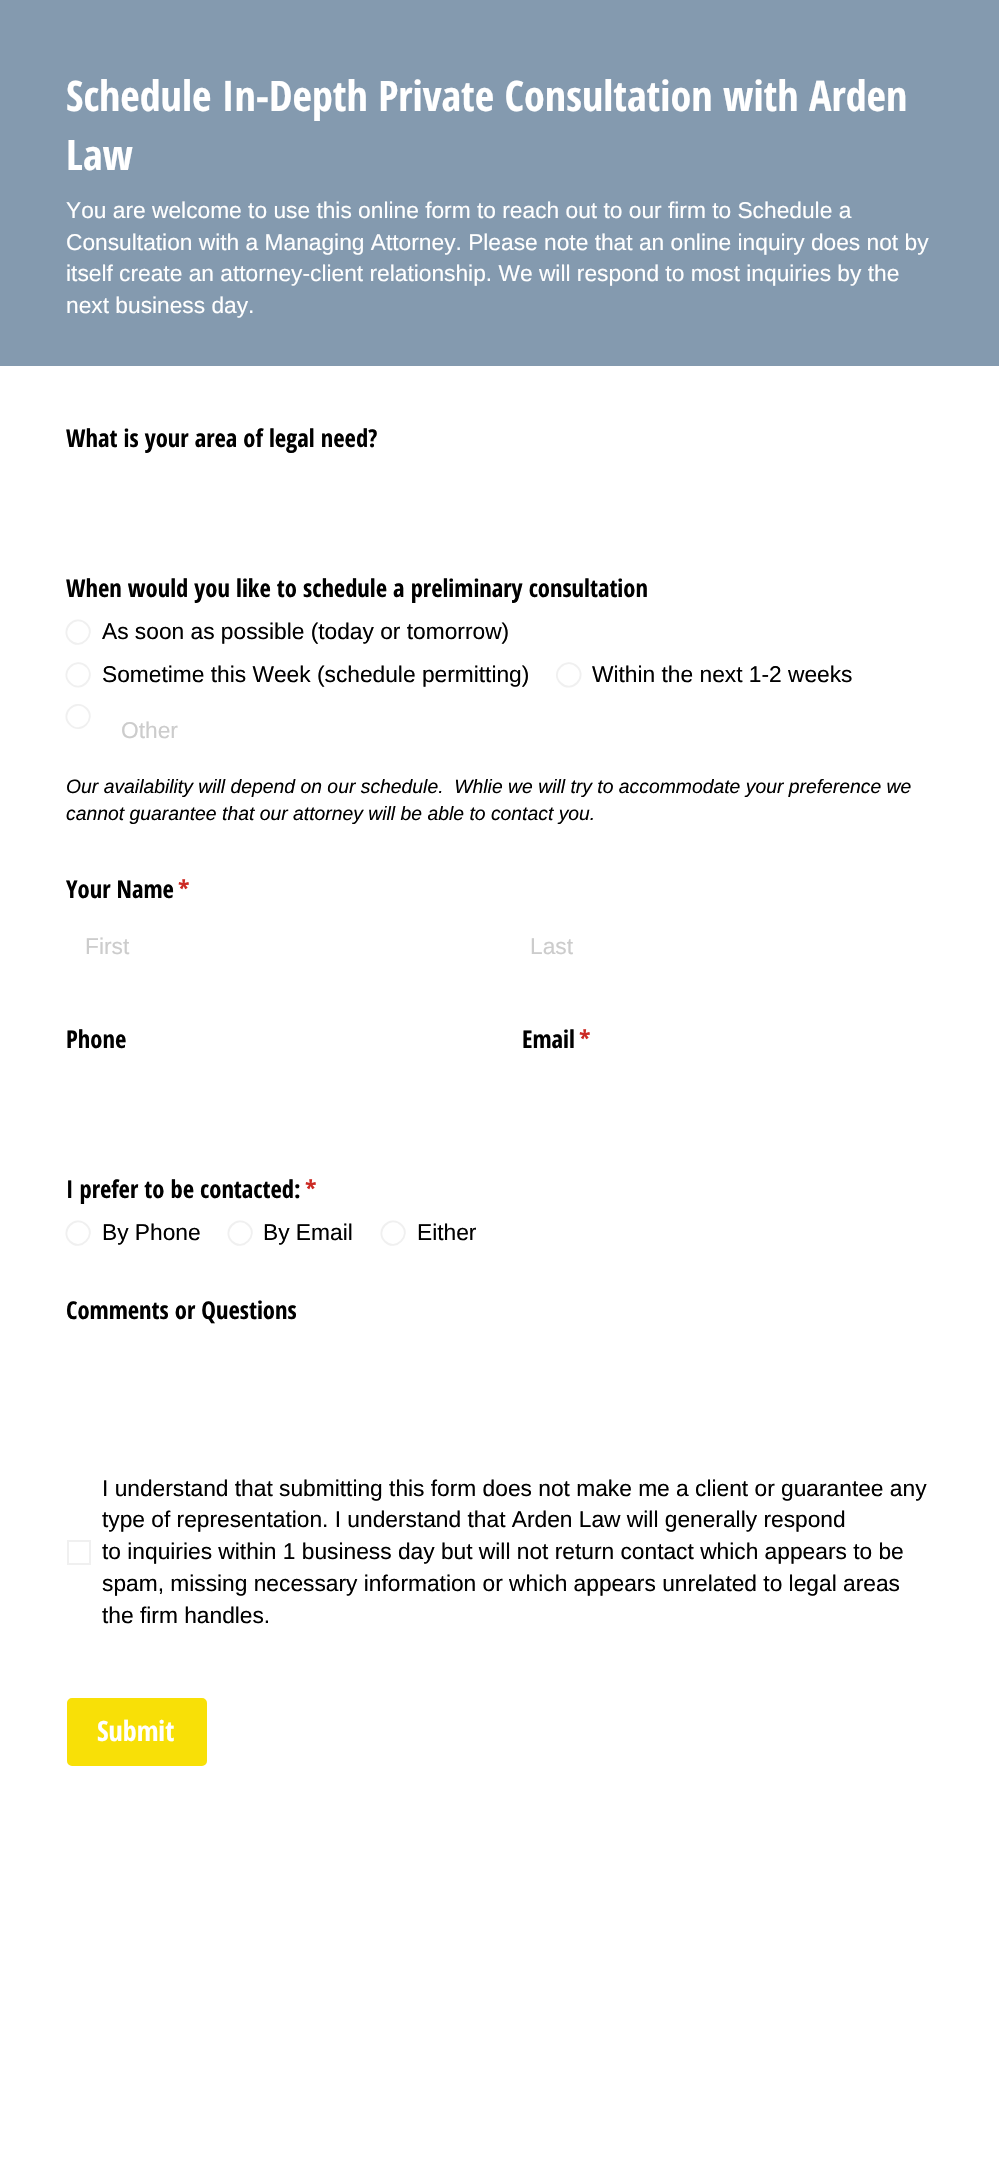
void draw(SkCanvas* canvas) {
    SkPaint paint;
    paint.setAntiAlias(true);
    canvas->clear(0xFFFFFFFF);
    paint.setColor(0xFF849AAF);
    canvas->drawRect(SkRect::MakeXYWH(0, 0, 999, 366), paint);
    SkFont font1(fontMgr->matchFamilyStyle("Open Sans Condensed", SkFontStyle::Bold()), 42.1f);
    font1.setSubpixel(true);
    paint.setColor(0xFFFFFFFF);
    canvas->drawString("Schedule In-Depth Private Consultation with Arden", 66, 111, font1, paint);
    canvas->drawString("Law", 66, 170, font1, paint);
    SkFont font2(fontMgr->matchFamilyStyle("Liberation Sans", SkFontStyle::Normal()), 22.75f);
    font2.setSubpixel(true);
    canvas->drawString("You are welcome to use this online form to reach out to our firm to Schedule a", 66, 218, font2, paint);
    canvas->drawString("Consultation with a Managing Attorney. Please note that an online inquiry does not by", 66, 250, font2, paint);
    canvas->drawString("itself create an attorney-client relationship. We will respond to most inquiries by the", 66, 281, font2, paint);
    canvas->drawString("next business day.", 66, 313, font2, paint);
    SkFont font3(fontMgr->matchFamilyStyle("Open Sans Condensed", SkFontStyle::Bold()), 24.6f);
    font3.setSubpixel(true);
    paint.setColor(0xFF000000);
    canvas->drawString("What is your area of legal need?", 66, 447, font3, paint);
    canvas->drawString("When would you like to schedule a preliminary consultation", 66, 597, font3, paint);
    paint.setStyle(SkPaint::kStroke_Style);
    paint.setStrokeWidth(1.8f);
    paint.setColor(0xFFF0F0F0);
    canvas->drawPath(SkPathBuilder().moveTo(86.5f, 624).cubicTo(97, 634.5f, 80.5f, 651, 70, 640.5f).cubicTo(59, 629.5f, 75.5f, 613, 86.5f, 624).close().detach(), paint);
    paint.setStyle(SkPaint::kFill_Style);
    paint.setColor(0xFF000000);
    canvas->drawString("As soon as possible (today or tomorrow)", 102, 639, font2, paint);
    paint.setStyle(SkPaint::kStroke_Style);
    paint.setColor(0xFFF0F0F0);
    canvas->drawPath(SkPathBuilder().moveTo(86.5f, 666.5f).cubicTo(97, 677.5f, 80.5f, 694, 70, 683).cubicTo(59, 672.5f, 75.5f, 656, 86.5f, 666.5f).close().detach(), paint);
    paint.setStyle(SkPaint::kFill_Style);
    paint.setColor(0xFF000000);
    canvas->drawString("Sometime this Week (schedule permitting)", 102, 682, font2, paint);
    paint.setStyle(SkPaint::kStroke_Style);
    paint.setColor(0xFFF0F0F0);
    canvas->drawPath(SkPathBuilder().moveTo(577, 666.5f).cubicTo(588, 677.5f, 571.5f, 694, 560.5f, 683).cubicTo(549.5f, 672.5f, 566, 656, 577, 666.5f).close().detach(), paint);
    paint.setStyle(SkPaint::kFill_Style);
    paint.setColor(0xFF000000);
    canvas->drawString("Within the next 1-2 weeks", 592, 682, font2, paint);
    paint.setStyle(SkPaint::kStroke_Style);
    paint.setColor(0xFFF0F0F0);
    canvas->drawPath(SkPathBuilder().moveTo(86.5f, 708.5f).cubicTo(97, 719, 80.5f, 735.5f, 70, 724.5f).cubicTo(59, 714, 75.5f, 697.5f, 86.5f, 708.5f).close().detach(), paint);
    paint.setStyle(SkPaint::kFill_Style);
    paint.setColor(0xFFCCCCCC);
    canvas->drawString("Other", 121, 738, font2, paint);
    SkFont font4(fontMgr->matchFamilyStyle("Liberation Sans", SkFontStyle::Italic()), 19.35f);
    font4.setSubpixel(true);
    paint.setColor(0xFF000000);
    canvas->drawString("Our availability will depend on our schedule.  Whlie we will try to accommodate your preference we", 66, 793, font4, paint);
    canvas->drawString("cannot guarantee that our attorney will be able to contact you.", 66, 820, font4, paint);
    canvas->drawString("Your Name", 66, 898, font3, paint);
    paint.setColor(0xFFCC2A24);
    canvas->drawString("*", 178, 898, font3, paint);
    paint.setColor(0xFFCCCCCC);
    canvas->drawString("First", 85, 954, font2, paint);
    canvas->drawString("Last", 530, 954, font2, paint);
    paint.setColor(0xFF000000);
    canvas->drawString("Phone", 66, 1048, font3, paint);
    canvas->drawString("Email", 522, 1048, font3, paint);
    paint.setColor(0xFFCC2A24);
    canvas->drawString("*", 579, 1048, font3, paint);
    paint.setColor(0xFF000000);
    canvas->drawString("I prefer to be contacted:", 66, 1198, font3, paint);
    paint.setColor(0xFFCC2A24);
    canvas->drawString("*", 305, 1198, font3, paint);
    paint.setStyle(SkPaint::kStroke_Style);
    paint.setColor(0xFFF0F0F0);
    canvas->drawPath(SkPathBuilder().moveTo(86.5f, 1225).cubicTo(97, 1235.5f, 80.5f, 1252, 70, 1241.5f).cubicTo(59, 1230.5f, 75.5f, 1214, 86.5f, 1225).close().detach(), paint);
    paint.setStyle(SkPaint::kFill_Style);
    paint.setColor(0xFF000000);
    canvas->drawString("By Phone", 102, 1240, font2, paint);
    paint.setStyle(SkPaint::kStroke_Style);
    paint.setColor(0xFFF0F0F0);
    canvas->drawPath(SkPathBuilder().moveTo(248.5f, 1225).cubicTo(259, 1235.5f, 242.5f, 1252, 232, 1241.5f).cubicTo(221, 1230.5f, 237.5f, 1214, 248.5f, 1225).close().detach(), paint);
    paint.setStyle(SkPaint::kFill_Style);
    paint.setColor(0xFF000000);
    canvas->drawString("By Email", 263, 1240, font2, paint);
    paint.setStyle(SkPaint::kStroke_Style);
    paint.setColor(0xFFF0F0F0);
    canvas->drawPath(SkPathBuilder().moveTo(401.5f, 1225).cubicTo(412, 1235.5f, 395.5f, 1252, 385, 1241.5f).cubicTo(374, 1230.5f, 390.5f, 1214, 401.5f, 1225).close().detach(), paint);
    paint.setStyle(SkPaint::kFill_Style);
    paint.setColor(0xFF000000);
    canvas->drawString("Either", 417, 1240, font2, paint);
    canvas->drawString("Comments or Questions", 66, 1319, font3, paint);
    paint.setStyle(SkPaint::kStroke_Style);
    paint.setStrokeWidth(2);
    paint.setColor(0xFFF0F0F0);
    canvas->drawRect(SkRect::MakeXYWH(68, 1541, 22, 23), paint);
    paint.setStyle(SkPaint::kFill_Style);
    paint.setColor(0xFF000000);
    canvas->drawString("I understand that submitting this form does not make me a client or guarantee any", 102, 1496, font2, paint);
    canvas->drawString("type of representation. I understand that Arden Law will generally respond", 102, 1527, font2, paint);
    canvas->drawString("to inquiries within 1 business day but will not return contact which appears to be", 102, 1559, font2, paint);
    canvas->drawString("spam, missing necessary information or which appears unrelated to legal areas", 102, 1591, font2, paint);
    canvas->drawString("the firm handles.", 102, 1623, font2, paint);
    paint.setColor(0xFFF8E007);
    canvas->drawRoundRect(SkRect::MakeXYWH(68, 1699, 138, 66), 4, 4, paint);
    paint.setStyle(SkPaint::kStroke_Style);
    canvas->drawRoundRect(SkRect::MakeXYWH(68, 1699, 138, 66), 4, 4, paint);
    SkFont font5(fontMgr->matchFamilyStyle("Open Sans Condensed", SkFontStyle::Bold()), 28);
    font5.setSubpixel(true);
    paint.setStyle(SkPaint::kFill_Style);
    paint.setColor(0xFFFFFFFF);
    canvas->drawString("Submit", 97, 1741, font5, paint);
}
